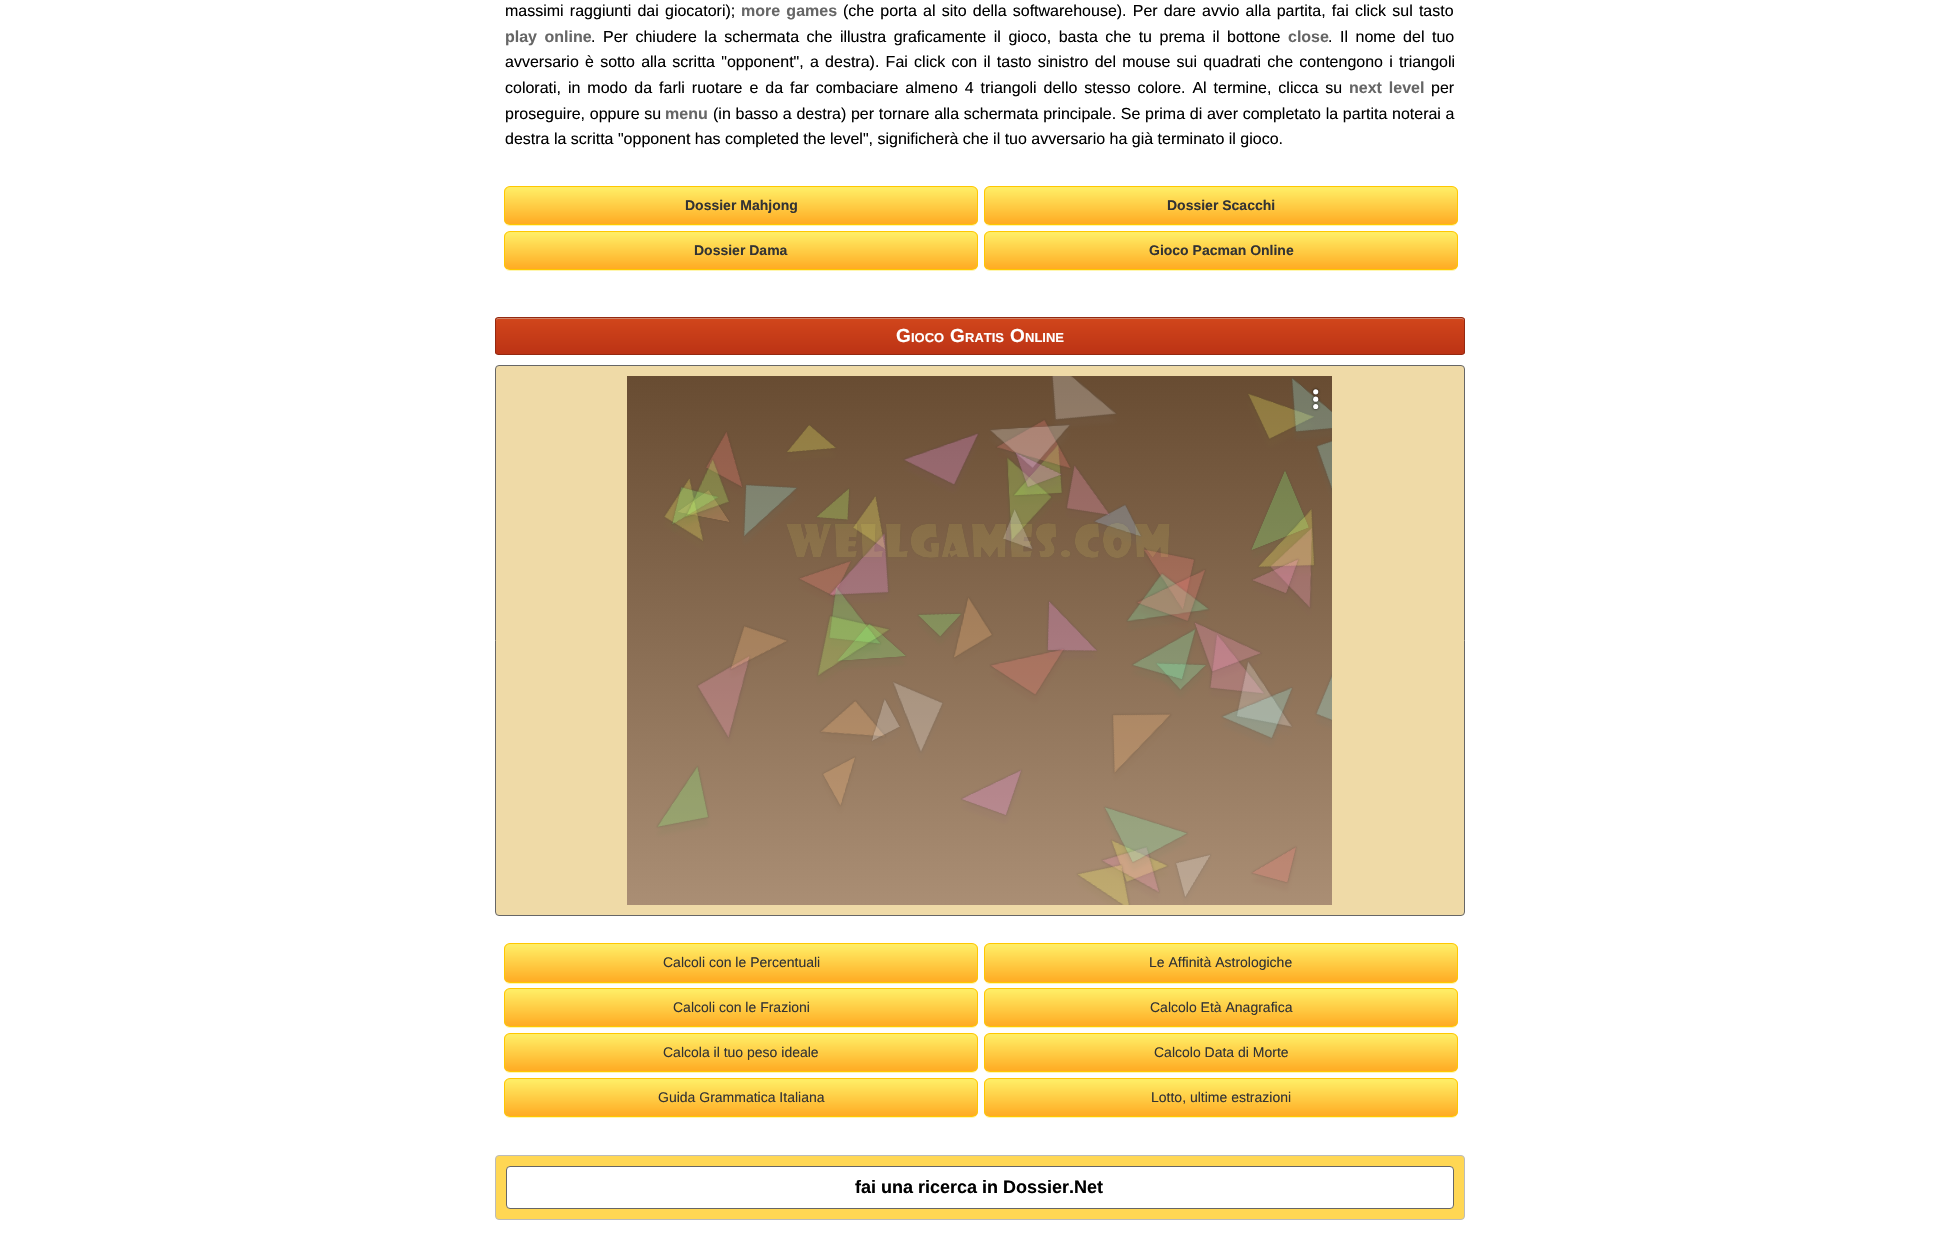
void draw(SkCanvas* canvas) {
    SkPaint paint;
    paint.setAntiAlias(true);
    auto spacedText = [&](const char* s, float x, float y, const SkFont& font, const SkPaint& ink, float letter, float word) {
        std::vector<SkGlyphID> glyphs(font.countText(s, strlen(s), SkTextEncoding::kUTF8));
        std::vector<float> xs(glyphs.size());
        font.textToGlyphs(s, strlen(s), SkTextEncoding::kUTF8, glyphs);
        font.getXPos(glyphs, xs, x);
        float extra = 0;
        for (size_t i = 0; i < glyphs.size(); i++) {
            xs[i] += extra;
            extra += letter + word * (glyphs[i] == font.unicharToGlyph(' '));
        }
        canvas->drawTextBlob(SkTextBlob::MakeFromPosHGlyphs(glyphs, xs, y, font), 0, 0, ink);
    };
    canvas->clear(0xFFFFFFFF);
    SkFont font1(fontMgr->matchFamilyStyle("Liberation Sans", SkFontStyle::Normal()), 16);
    font1.setSubpixel(true);
    paint.setColor(0xFF000000);
    spacedText("massimi raggiunti dai giocatori);", 505, 16, font1, paint, 0, 1.75f);
    SkFont font2(fontMgr->matchFamilyStyle("Liberation Sans", SkFontStyle::Bold()), 16);
    font2.setSubpixel(true);
    paint.setColor(0xFF666666);
    spacedText("more games", 741, 16, font2, paint, 0, 1.8f);
    paint.setColor(0xFF000000);
    spacedText("(che porta al sito della softwarehouse). Per dare avvio alla partita, fai click sul tasto", 843, 16, font1, paint, 0, 1.75f);
    paint.setColor(0xFF666666);
    spacedText("play online", 505, 42, font2, paint, 0, 3.1f);
    paint.setColor(0xFF000000);
    spacedText(". Per chiudere la schermata che illustra graficamente il gioco, basta che tu prema il bottone", 591, 42, font1, paint, 0, 3.1f);
    paint.setColor(0xFF666666);
    canvas->drawString("close", 1288, 42, font2, paint);
    paint.setColor(0xFF000000);
    spacedText(". Il nome del tuo", 1328, 42, font1, paint, 0, 3.1f);
    spacedText("avversario è sotto alla scritta \"opponent\", a destra). Fai click con il tasto sinistro del mouse sui quadrati che contengono i triangoli", 505, 67, font1, paint, 0, 1.8f);
    spacedText("colorati, in modo da farli ruotare e da far combaciare almeno 4 triangoli dello stesso colore. Al termine, clicca su", 505, 93, font1, paint, 0, 2.5f);
    paint.setColor(0xFF666666);
    spacedText("next level", 1349, 93, font2, paint, 0, 2.5f);
    paint.setColor(0xFF000000);
    canvas->drawString("per", 1431, 93, font1, paint);
    spacedText("proseguire, oppure su", 505, 119, font1, paint, 0, 0.25f);
    paint.setColor(0xFF666666);
    canvas->drawString("menu", 665, 119, font2, paint);
    paint.setColor(0xFF000000);
    spacedText("(in basso a destra) per tornare alla schermata principale. Se prima di aver completato la partita noterai a", 713, 119, font1, paint, 0, 0.25f);
    canvas->drawString("destra la scritta \"opponent has completed the level\", significherà che il tuo avversario ha già terminato il gioco.", 505, 144, font1, paint);
    paint.setColor(0xFFFFF6AF);
    canvas->drawPath(SkPathBuilder().moveTo(504, 219).cubicTo(504, 223, 506, 226, 510, 226).lineTo(972, 226).cubicTo(976, 226, 978, 223, 978, 219).cubicTo(978, 222, 975, 225, 972, 225).lineTo(510, 225).cubicTo(507, 225, 504, 222, 504, 219).close().detach(), paint);
    canvas->save();
    canvas->clipPath(SkPathBuilder().moveTo(510, 186).lineTo(972, 186).cubicTo(975.5f, 186, 978, 188.5f, 978, 192).lineTo(978, 219).cubicTo(978, 222.5f, 975.5f, 225, 972, 225).lineTo(510, 225).cubicTo(506.5f, 225, 504, 222.5f, 504, 219).lineTo(504, 192).cubicTo(504, 188.5f, 506.5f, 186, 510, 186).close().detach(), true);
    {
        const SkColor colors[] = {0xFFFFEC64, 0xFFFFAB23};
        const float stops[] = {0.05f, 1};
        const SkPoint ends[] = {{741, 187}, {741, 224}};
        paint.setShader(SkGradientShader::MakeLinear(ends, colors, stops, 2, SkTileMode::kClamp));
        paint.setAlpha(255);
    }
    canvas->drawRect(SkRect::MakeXYWH(504, 187, 474, 37), paint);
    canvas->restore();
    paint.setStyle(SkPaint::kStroke_Style);
    paint.setStrokeWidth(1);
    paint.setShader(nullptr);
    paint.setColor(0xFFFFC700);
    canvas->drawRoundRect(SkRect::MakeXYWH(504.5f, 186.5f, 473, 38), 5.5f, 5.5f, paint);
    SkFont font3(fontMgr->matchFamilyStyle("Liberation Sans", SkFontStyle::Bold()), 14);
    font3.setSubpixel(true);
    paint.setStyle(SkPaint::kFill_Style);
    paint.setColor(0xFF333333);
    canvas->drawString("Dossier Mahjong", 685, 210, font3, paint);
    paint.setColor(0xFFFFF6AF);
    canvas->drawPath(SkPathBuilder().moveTo(504, 264).cubicTo(504, 268, 506, 271, 510, 271).lineTo(972, 271).cubicTo(976, 271, 978, 268, 978, 264).cubicTo(978, 267, 975, 270, 972, 270).lineTo(510, 270).cubicTo(507, 270, 504, 267, 504, 264).close().detach(), paint);
    canvas->save();
    canvas->clipPath(SkPathBuilder().moveTo(510, 231).lineTo(972, 231).cubicTo(975.5f, 231, 978, 233.5f, 978, 237).lineTo(978, 264).cubicTo(978, 267.5f, 975.5f, 270, 972, 270).lineTo(510, 270).cubicTo(506.5f, 270, 504, 267.5f, 504, 264).lineTo(504, 237).cubicTo(504, 233.5f, 506.5f, 231, 510, 231).close().detach(), true);
    {
        const SkColor colors[] = {0xFFFFEC64, 0xFFFFAB23};
        const float stops[] = {0.05f, 1};
        const SkPoint ends[] = {{741, 232}, {741, 269}};
        paint.setShader(SkGradientShader::MakeLinear(ends, colors, stops, 2, SkTileMode::kClamp));
        paint.setAlpha(255);
    }
    canvas->drawRect(SkRect::MakeXYWH(504, 232, 474, 37), paint);
    canvas->restore();
    paint.setStyle(SkPaint::kStroke_Style);
    paint.setShader(nullptr);
    paint.setColor(0xFFFFC700);
    canvas->drawRoundRect(SkRect::MakeXYWH(504.5f, 231.5f, 473, 38), 5.5f, 5.5f, paint);
    paint.setStyle(SkPaint::kFill_Style);
    paint.setColor(0xFF333333);
    canvas->drawString("Dossier Dama", 694, 255, font3, paint);
    paint.setColor(0xFFFFF6AF);
    canvas->drawPath(SkPathBuilder().moveTo(984, 219).cubicTo(984, 223, 986, 226, 990, 226).lineTo(1452, 226).cubicTo(1456, 226, 1458, 223, 1458, 219).cubicTo(1458, 222, 1455, 225, 1452, 225).lineTo(990, 225).cubicTo(987, 225, 984, 222, 984, 219).close().detach(), paint);
    canvas->save();
    canvas->clipPath(SkPathBuilder().moveTo(990, 186).lineTo(1452, 186).cubicTo(1455.5f, 186, 1458, 188.5f, 1458, 192).lineTo(1458, 219).cubicTo(1458, 222.5f, 1455.5f, 225, 1452, 225).lineTo(990, 225).cubicTo(986.5f, 225, 984, 222.5f, 984, 219).lineTo(984, 192).cubicTo(984, 188.5f, 986.5f, 186, 990, 186).close().detach(), true);
    {
        const SkColor colors[] = {0xFFFFEC64, 0xFFFFAB23};
        const float stops[] = {0.05f, 1};
        const SkPoint ends[] = {{1221, 187}, {1221, 224}};
        paint.setShader(SkGradientShader::MakeLinear(ends, colors, stops, 2, SkTileMode::kClamp));
        paint.setAlpha(255);
    }
    canvas->drawRect(SkRect::MakeXYWH(984, 187, 474, 37), paint);
    canvas->restore();
    paint.setStyle(SkPaint::kStroke_Style);
    paint.setShader(nullptr);
    paint.setColor(0xFFFFC700);
    canvas->drawRoundRect(SkRect::MakeXYWH(984.5f, 186.5f, 473, 38), 5.5f, 5.5f, paint);
    paint.setStyle(SkPaint::kFill_Style);
    paint.setColor(0xFF333333);
    canvas->drawString("Dossier Scacchi", 1167, 210, font3, paint);
    paint.setColor(0xFFFFF6AF);
    canvas->drawPath(SkPathBuilder().moveTo(984, 264).cubicTo(984, 268, 986, 271, 990, 271).lineTo(1452, 271).cubicTo(1456, 271, 1458, 268, 1458, 264).cubicTo(1458, 267, 1455, 270, 1452, 270).lineTo(990, 270).cubicTo(987, 270, 984, 267, 984, 264).close().detach(), paint);
    canvas->save();
    canvas->clipPath(SkPathBuilder().moveTo(990, 231).lineTo(1452, 231).cubicTo(1455.5f, 231, 1458, 233.5f, 1458, 237).lineTo(1458, 264).cubicTo(1458, 267.5f, 1455.5f, 270, 1452, 270).lineTo(990, 270).cubicTo(986.5f, 270, 984, 267.5f, 984, 264).lineTo(984, 237).cubicTo(984, 233.5f, 986.5f, 231, 990, 231).close().detach(), true);
    {
        const SkColor colors[] = {0xFFFFEC64, 0xFFFFAB23};
        const float stops[] = {0.05f, 1};
        const SkPoint ends[] = {{1221, 232}, {1221, 269}};
        paint.setShader(SkGradientShader::MakeLinear(ends, colors, stops, 2, SkTileMode::kClamp));
        paint.setAlpha(255);
    }
    canvas->drawRect(SkRect::MakeXYWH(984, 232, 474, 37), paint);
    canvas->restore();
    paint.setStyle(SkPaint::kStroke_Style);
    paint.setShader(nullptr);
    paint.setColor(0xFFFFC700);
    canvas->drawRoundRect(SkRect::MakeXYWH(984.5f, 231.5f, 473, 38), 5.5f, 5.5f, paint);
    paint.setStyle(SkPaint::kFill_Style);
    paint.setColor(0xFF333333);
    canvas->drawString("Gioco Pacman Online", 1149, 255, font3, paint);
    canvas->save();
    canvas->clipPath(SkPathBuilder().moveTo(498, 317).lineTo(1462, 317).cubicTo(1463.5f, 317, 1465, 318.5f, 1465, 320).lineTo(1465, 352).cubicTo(1465, 353.5f, 1463.5f, 355, 1462, 355).lineTo(498, 355).cubicTo(496.5f, 355, 495, 353.5f, 495, 352).lineTo(495, 320).cubicTo(495, 318.5f, 496.5f, 317, 498, 317).close().detach(), true);
    {
        const SkColor colors[] = {0xFFD0451B, 0xFFBC3315};
        const float stops[] = {0.05f, 1};
        const SkPoint ends[] = {{980, 318}, {980, 354}};
        paint.setShader(SkGradientShader::MakeLinear(ends, colors, stops, 2, SkTileMode::kClamp));
        paint.setAlpha(255);
    }
    canvas->drawRect(SkRect::MakeXYWH(495, 318, 970, 36), paint);
    canvas->restore();
    paint.setShader(nullptr);
    paint.setColor(0xFFCF866C);
    canvas->drawPath(SkPathBuilder().moveTo(498, 319).lineTo(1462, 319).cubicTo(1463, 319, 1464, 320, 1464, 321).lineTo(1464, 319).lineTo(1462, 318).lineTo(497, 318).lineTo(496, 320).lineTo(496, 321).cubicTo(496, 320, 497, 319, 498, 319).close().detach(), paint);
    paint.setStyle(SkPaint::kStroke_Style);
    paint.setColor(0xFF942911);
    canvas->drawRoundRect(SkRect::MakeXYWH(495.5f, 317.5f, 969, 37), 2.5f, 2.5f, paint);
    SkFont font4(fontMgr->matchFamilyStyle("Liberation Sans", SkFontStyle::Bold()), 19);
    font4.setSubpixel(true);
    paint.setStyle(SkPaint::kFill_Style);
    paint.setColor(0xFFFFFFFF);
    canvas->drawString("G", 896, 342, font4, paint);
    SkFont font5(fontMgr->matchFamilyStyle("Liberation Sans", SkFontStyle::Bold()), 13);
    font5.setSubpixel(true);
    canvas->drawString("IOCO", 911, 342, font5, paint);
    canvas->drawString("G", 950, 342, font4, paint);
    canvas->drawString("RATIS", 965, 342, font5, paint);
    canvas->drawString("O", 1010, 342, font4, paint);
    canvas->drawString("NLINE", 1025, 342, font5, paint);
    paint.setColor(0xFFEFDAA7);
    canvas->drawRoundRect(SkRect::MakeXYWH(495.5f, 365.5f, 969, 550), 3.5f, 3.5f, paint);
    paint.setStyle(SkPaint::kStroke_Style);
    paint.setColor(0xFF666666);
    canvas->drawRoundRect(SkRect::MakeXYWH(495.5f, 365.5f, 969, 550), 3.5f, 3.5f, paint);
    canvas->drawImageRect(SkImages::DeferredFromEncodedData(SkData::MakeFromFileName("img1.png")), SkRect::MakeXYWH(627, 376, 705, 529), SkSamplingOptions());
    paint.setStyle(SkPaint::kFill_Style);
    paint.setColor(0xFFFFF6AF);
    canvas->drawPath(SkPathBuilder().moveTo(504, 977).cubicTo(504, 981, 506, 984, 510, 984).lineTo(972, 984).cubicTo(976, 984, 978, 981, 978, 977).cubicTo(978, 980, 975, 983, 972, 983).lineTo(510, 983).cubicTo(507, 983, 504, 980, 504, 977).close().detach(), paint);
    canvas->save();
    canvas->clipPath(SkPathBuilder().moveTo(510, 943).lineTo(972, 943).cubicTo(975.5f, 943, 978, 945.5f, 978, 949).lineTo(978, 977).cubicTo(978, 980.5f, 975.5f, 983, 972, 983).lineTo(510, 983).cubicTo(506.5f, 983, 504, 980.5f, 504, 977).lineTo(504, 949).cubicTo(504, 945.5f, 506.5f, 943, 510, 943).close().detach(), true);
    {
        const SkColor colors[] = {0xFFFFEC64, 0xFFFFAB23};
        const float stops[] = {0.05f, 1};
        const SkPoint ends[] = {{741, 944}, {741, 982}};
        paint.setShader(SkGradientShader::MakeLinear(ends, colors, stops, 2, SkTileMode::kClamp));
        paint.setAlpha(255);
    }
    canvas->drawRect(SkRect::MakeXYWH(504, 944, 474, 38), paint);
    canvas->restore();
    paint.setStyle(SkPaint::kStroke_Style);
    paint.setShader(nullptr);
    paint.setColor(0xFFFFC700);
    canvas->drawRoundRect(SkRect::MakeXYWH(504.5f, 943.5f, 473, 39), 5.5f, 5.5f, paint);
    SkFont font6(fontMgr->matchFamilyStyle("Liberation Sans", SkFontStyle::Normal()), 14);
    font6.setSubpixel(true);
    paint.setStyle(SkPaint::kFill_Style);
    paint.setColor(0xFF333333);
    canvas->drawString("Calcoli con le Percentuali", 663, 967, font6, paint);
    paint.setColor(0xFFFFF6AF);
    canvas->drawPath(SkPathBuilder().moveTo(504, 1021).cubicTo(504, 1025, 506, 1028, 510, 1028).lineTo(972, 1028).cubicTo(976, 1028, 978, 1025, 978, 1021).cubicTo(978, 1024, 975, 1027, 972, 1027).lineTo(510, 1027).cubicTo(507, 1027, 504, 1024, 504, 1021).close().detach(), paint);
    canvas->save();
    canvas->clipPath(SkPathBuilder().moveTo(510, 988).lineTo(972, 988).cubicTo(975.5f, 988, 978, 990.5f, 978, 994).lineTo(978, 1021).cubicTo(978, 1024.5f, 975.5f, 1027, 972, 1027).lineTo(510, 1027).cubicTo(506.5f, 1027, 504, 1024.5f, 504, 1021).lineTo(504, 994).cubicTo(504, 990.5f, 506.5f, 988, 510, 988).close().detach(), true);
    {
        const SkColor colors[] = {0xFFFFEC64, 0xFFFFAB23};
        const float stops[] = {0.05f, 1};
        const SkPoint ends[] = {{741, 989}, {741, 1026}};
        paint.setShader(SkGradientShader::MakeLinear(ends, colors, stops, 2, SkTileMode::kClamp));
        paint.setAlpha(255);
    }
    canvas->drawRect(SkRect::MakeXYWH(504, 989, 474, 37), paint);
    canvas->restore();
    paint.setStyle(SkPaint::kStroke_Style);
    paint.setShader(nullptr);
    paint.setColor(0xFFFFC700);
    canvas->drawRoundRect(SkRect::MakeXYWH(504.5f, 988.5f, 473, 38), 5.5f, 5.5f, paint);
    paint.setStyle(SkPaint::kFill_Style);
    paint.setColor(0xFF333333);
    canvas->drawString("Calcoli con le Frazioni", 673, 1012, font6, paint);
    paint.setColor(0xFFFFF6AF);
    canvas->drawPath(SkPathBuilder().moveTo(504, 1066).cubicTo(504, 1070, 506, 1073, 510, 1073).lineTo(972, 1073).cubicTo(976, 1073, 978, 1070, 978, 1066).cubicTo(978, 1069, 975, 1072, 972, 1072).lineTo(510, 1072).cubicTo(507, 1072, 504, 1069, 504, 1066).close().detach(), paint);
    canvas->save();
    canvas->clipPath(SkPathBuilder().moveTo(510, 1033).lineTo(972, 1033).cubicTo(975.5f, 1033, 978, 1035.5f, 978, 1039).lineTo(978, 1066).cubicTo(978, 1069.5f, 975.5f, 1072, 972, 1072).lineTo(510, 1072).cubicTo(506.5f, 1072, 504, 1069.5f, 504, 1066).lineTo(504, 1039).cubicTo(504, 1035.5f, 506.5f, 1033, 510, 1033).close().detach(), true);
    {
        const SkColor colors[] = {0xFFFFEC64, 0xFFFFAB23};
        const float stops[] = {0.05f, 1};
        const SkPoint ends[] = {{741, 1034}, {741, 1071}};
        paint.setShader(SkGradientShader::MakeLinear(ends, colors, stops, 2, SkTileMode::kClamp));
        paint.setAlpha(255);
    }
    canvas->drawRect(SkRect::MakeXYWH(504, 1034, 474, 37), paint);
    canvas->restore();
    paint.setStyle(SkPaint::kStroke_Style);
    paint.setShader(nullptr);
    paint.setColor(0xFFFFC700);
    canvas->drawRoundRect(SkRect::MakeXYWH(504.5f, 1033.5f, 473, 38), 5.5f, 5.5f, paint);
    paint.setStyle(SkPaint::kFill_Style);
    paint.setColor(0xFF333333);
    canvas->drawString("Calcola il tuo peso ideale", 663, 1057, font6, paint);
    paint.setColor(0xFFFFF6AF);
    canvas->drawPath(SkPathBuilder().moveTo(504, 1111).cubicTo(504, 1115, 506, 1118, 510, 1118).lineTo(972, 1118).cubicTo(976, 1118, 978, 1115, 978, 1111).cubicTo(978, 1114, 975, 1117, 972, 1117).lineTo(510, 1117).cubicTo(507, 1117, 504, 1114, 504, 1111).close().detach(), paint);
    canvas->save();
    canvas->clipPath(SkPathBuilder().moveTo(510, 1078).lineTo(972, 1078).cubicTo(975.5f, 1078, 978, 1080.5f, 978, 1084).lineTo(978, 1111).cubicTo(978, 1114.5f, 975.5f, 1117, 972, 1117).lineTo(510, 1117).cubicTo(506.5f, 1117, 504, 1114.5f, 504, 1111).lineTo(504, 1084).cubicTo(504, 1080.5f, 506.5f, 1078, 510, 1078).close().detach(), true);
    {
        const SkColor colors[] = {0xFFFFEC64, 0xFFFFAB23};
        const float stops[] = {0.05f, 1};
        const SkPoint ends[] = {{741, 1079}, {741, 1116}};
        paint.setShader(SkGradientShader::MakeLinear(ends, colors, stops, 2, SkTileMode::kClamp));
        paint.setAlpha(255);
    }
    canvas->drawRect(SkRect::MakeXYWH(504, 1079, 474, 37), paint);
    canvas->restore();
    paint.setStyle(SkPaint::kStroke_Style);
    paint.setShader(nullptr);
    paint.setColor(0xFFFFC700);
    canvas->drawRoundRect(SkRect::MakeXYWH(504.5f, 1078.5f, 473, 38), 5.5f, 5.5f, paint);
    paint.setStyle(SkPaint::kFill_Style);
    paint.setColor(0xFF333333);
    canvas->drawString("Guida Grammatica Italiana", 658, 1102, font6, paint);
    paint.setColor(0xFFFFF6AF);
    canvas->drawPath(SkPathBuilder().moveTo(984, 977).cubicTo(984, 981, 986, 984, 990, 984).lineTo(1452, 984).cubicTo(1456, 984, 1458, 981, 1458, 977).cubicTo(1458, 980, 1455, 983, 1452, 983).lineTo(990, 983).cubicTo(987, 983, 984, 980, 984, 977).close().detach(), paint);
    canvas->save();
    canvas->clipPath(SkPathBuilder().moveTo(990, 943).lineTo(1452, 943).cubicTo(1455.5f, 943, 1458, 945.5f, 1458, 949).lineTo(1458, 977).cubicTo(1458, 980.5f, 1455.5f, 983, 1452, 983).lineTo(990, 983).cubicTo(986.5f, 983, 984, 980.5f, 984, 977).lineTo(984, 949).cubicTo(984, 945.5f, 986.5f, 943, 990, 943).close().detach(), true);
    {
        const SkColor colors[] = {0xFFFFEC64, 0xFFFFAB23};
        const float stops[] = {0.05f, 1};
        const SkPoint ends[] = {{1221, 944}, {1221, 982}};
        paint.setShader(SkGradientShader::MakeLinear(ends, colors, stops, 2, SkTileMode::kClamp));
        paint.setAlpha(255);
    }
    canvas->drawRect(SkRect::MakeXYWH(984, 944, 474, 38), paint);
    canvas->restore();
    paint.setStyle(SkPaint::kStroke_Style);
    paint.setShader(nullptr);
    paint.setColor(0xFFFFC700);
    canvas->drawRoundRect(SkRect::MakeXYWH(984.5f, 943.5f, 473, 39), 5.5f, 5.5f, paint);
    paint.setStyle(SkPaint::kFill_Style);
    paint.setColor(0xFF333333);
    canvas->drawString("Le Affinità Astrologiche", 1149, 967, font6, paint);
    paint.setColor(0xFFFFF6AF);
    canvas->drawPath(SkPathBuilder().moveTo(984, 1021).cubicTo(984, 1025, 986, 1028, 990, 1028).lineTo(1452, 1028).cubicTo(1456, 1028, 1458, 1025, 1458, 1021).cubicTo(1458, 1024, 1455, 1027, 1452, 1027).lineTo(990, 1027).cubicTo(987, 1027, 984, 1024, 984, 1021).close().detach(), paint);
    canvas->save();
    canvas->clipPath(SkPathBuilder().moveTo(990, 988).lineTo(1452, 988).cubicTo(1455.5f, 988, 1458, 990.5f, 1458, 994).lineTo(1458, 1021).cubicTo(1458, 1024.5f, 1455.5f, 1027, 1452, 1027).lineTo(990, 1027).cubicTo(986.5f, 1027, 984, 1024.5f, 984, 1021).lineTo(984, 994).cubicTo(984, 990.5f, 986.5f, 988, 990, 988).close().detach(), true);
    {
        const SkColor colors[] = {0xFFFFEC64, 0xFFFFAB23};
        const float stops[] = {0.05f, 1};
        const SkPoint ends[] = {{1221, 989}, {1221, 1026}};
        paint.setShader(SkGradientShader::MakeLinear(ends, colors, stops, 2, SkTileMode::kClamp));
        paint.setAlpha(255);
    }
    canvas->drawRect(SkRect::MakeXYWH(984, 989, 474, 37), paint);
    canvas->restore();
    paint.setStyle(SkPaint::kStroke_Style);
    paint.setShader(nullptr);
    paint.setColor(0xFFFFC700);
    canvas->drawRoundRect(SkRect::MakeXYWH(984.5f, 988.5f, 473, 38), 5.5f, 5.5f, paint);
    paint.setStyle(SkPaint::kFill_Style);
    paint.setColor(0xFF333333);
    canvas->drawString("Calcolo Età Anagrafica", 1150, 1012, font6, paint);
    paint.setColor(0xFFFFF6AF);
    canvas->drawPath(SkPathBuilder().moveTo(984, 1066).cubicTo(984, 1070, 986, 1073, 990, 1073).lineTo(1452, 1073).cubicTo(1456, 1073, 1458, 1070, 1458, 1066).cubicTo(1458, 1069, 1455, 1072, 1452, 1072).lineTo(990, 1072).cubicTo(987, 1072, 984, 1069, 984, 1066).close().detach(), paint);
    canvas->save();
    canvas->clipPath(SkPathBuilder().moveTo(990, 1033).lineTo(1452, 1033).cubicTo(1455.5f, 1033, 1458, 1035.5f, 1458, 1039).lineTo(1458, 1066).cubicTo(1458, 1069.5f, 1455.5f, 1072, 1452, 1072).lineTo(990, 1072).cubicTo(986.5f, 1072, 984, 1069.5f, 984, 1066).lineTo(984, 1039).cubicTo(984, 1035.5f, 986.5f, 1033, 990, 1033).close().detach(), true);
    {
        const SkColor colors[] = {0xFFFFEC64, 0xFFFFAB23};
        const float stops[] = {0.05f, 1};
        const SkPoint ends[] = {{1221, 1034}, {1221, 1071}};
        paint.setShader(SkGradientShader::MakeLinear(ends, colors, stops, 2, SkTileMode::kClamp));
        paint.setAlpha(255);
    }
    canvas->drawRect(SkRect::MakeXYWH(984, 1034, 474, 37), paint);
    canvas->restore();
    paint.setStyle(SkPaint::kStroke_Style);
    paint.setShader(nullptr);
    paint.setColor(0xFFFFC700);
    canvas->drawRoundRect(SkRect::MakeXYWH(984.5f, 1033.5f, 473, 38), 5.5f, 5.5f, paint);
    paint.setStyle(SkPaint::kFill_Style);
    paint.setColor(0xFF333333);
    canvas->drawString("Calcolo Data di Morte", 1154, 1057, font6, paint);
    paint.setColor(0xFFFFF6AF);
    canvas->drawPath(SkPathBuilder().moveTo(984, 1111).cubicTo(984, 1115, 986, 1118, 990, 1118).lineTo(1452, 1118).cubicTo(1456, 1118, 1458, 1115, 1458, 1111).cubicTo(1458, 1114, 1455, 1117, 1452, 1117).lineTo(990, 1117).cubicTo(987, 1117, 984, 1114, 984, 1111).close().detach(), paint);
    canvas->save();
    canvas->clipPath(SkPathBuilder().moveTo(990, 1078).lineTo(1452, 1078).cubicTo(1455.5f, 1078, 1458, 1080.5f, 1458, 1084).lineTo(1458, 1111).cubicTo(1458, 1114.5f, 1455.5f, 1117, 1452, 1117).lineTo(990, 1117).cubicTo(986.5f, 1117, 984, 1114.5f, 984, 1111).lineTo(984, 1084).cubicTo(984, 1080.5f, 986.5f, 1078, 990, 1078).close().detach(), true);
    {
        const SkColor colors[] = {0xFFFFEC64, 0xFFFFAB23};
        const float stops[] = {0.05f, 1};
        const SkPoint ends[] = {{1221, 1079}, {1221, 1116}};
        paint.setShader(SkGradientShader::MakeLinear(ends, colors, stops, 2, SkTileMode::kClamp));
        paint.setAlpha(255);
    }
    canvas->drawRect(SkRect::MakeXYWH(984, 1079, 474, 37), paint);
    canvas->restore();
    paint.setStyle(SkPaint::kStroke_Style);
    paint.setShader(nullptr);
    paint.setColor(0xFFFFC700);
    canvas->drawRoundRect(SkRect::MakeXYWH(984.5f, 1078.5f, 473, 38), 5.5f, 5.5f, paint);
    paint.setStyle(SkPaint::kFill_Style);
    paint.setColor(0xFF333333);
    canvas->drawString("Lotto, ultime estrazioni", 1151, 1102, font6, paint);
    paint.setColor(0xFFFFD754);
    canvas->drawRoundRect(SkRect::MakeXYWH(495.5f, 1155.5f, 969, 64), 3.5f, 3.5f, paint);
    paint.setStyle(SkPaint::kStroke_Style);
    paint.setColor(0xFFBBBBBB);
    canvas->drawRoundRect(SkRect::MakeXYWH(495.5f, 1155.5f, 969, 64), 3.5f, 3.5f, paint);
    paint.setStyle(SkPaint::kFill_Style);
    paint.setColor(0xFFFFFFFF);
    canvas->drawRoundRect(SkRect::MakeXYWH(506.5f, 1166.5f, 947, 42), 3.5f, 3.5f, paint);
    paint.setStyle(SkPaint::kStroke_Style);
    paint.setColor(0xFF666666);
    canvas->drawRoundRect(SkRect::MakeXYWH(506.5f, 1166.5f, 947, 42), 3.5f, 3.5f, paint);
    SkFont font7(fontMgr->matchFamilyStyle("Liberation Sans", SkFontStyle::Bold()), 18);
    font7.setSubpixel(true);
    paint.setStyle(SkPaint::kFill_Style);
    paint.setColor(0xFF000000);
    canvas->drawString("fai una ricerca in Dossier.Net", 855, 1193, font7, paint);
}
